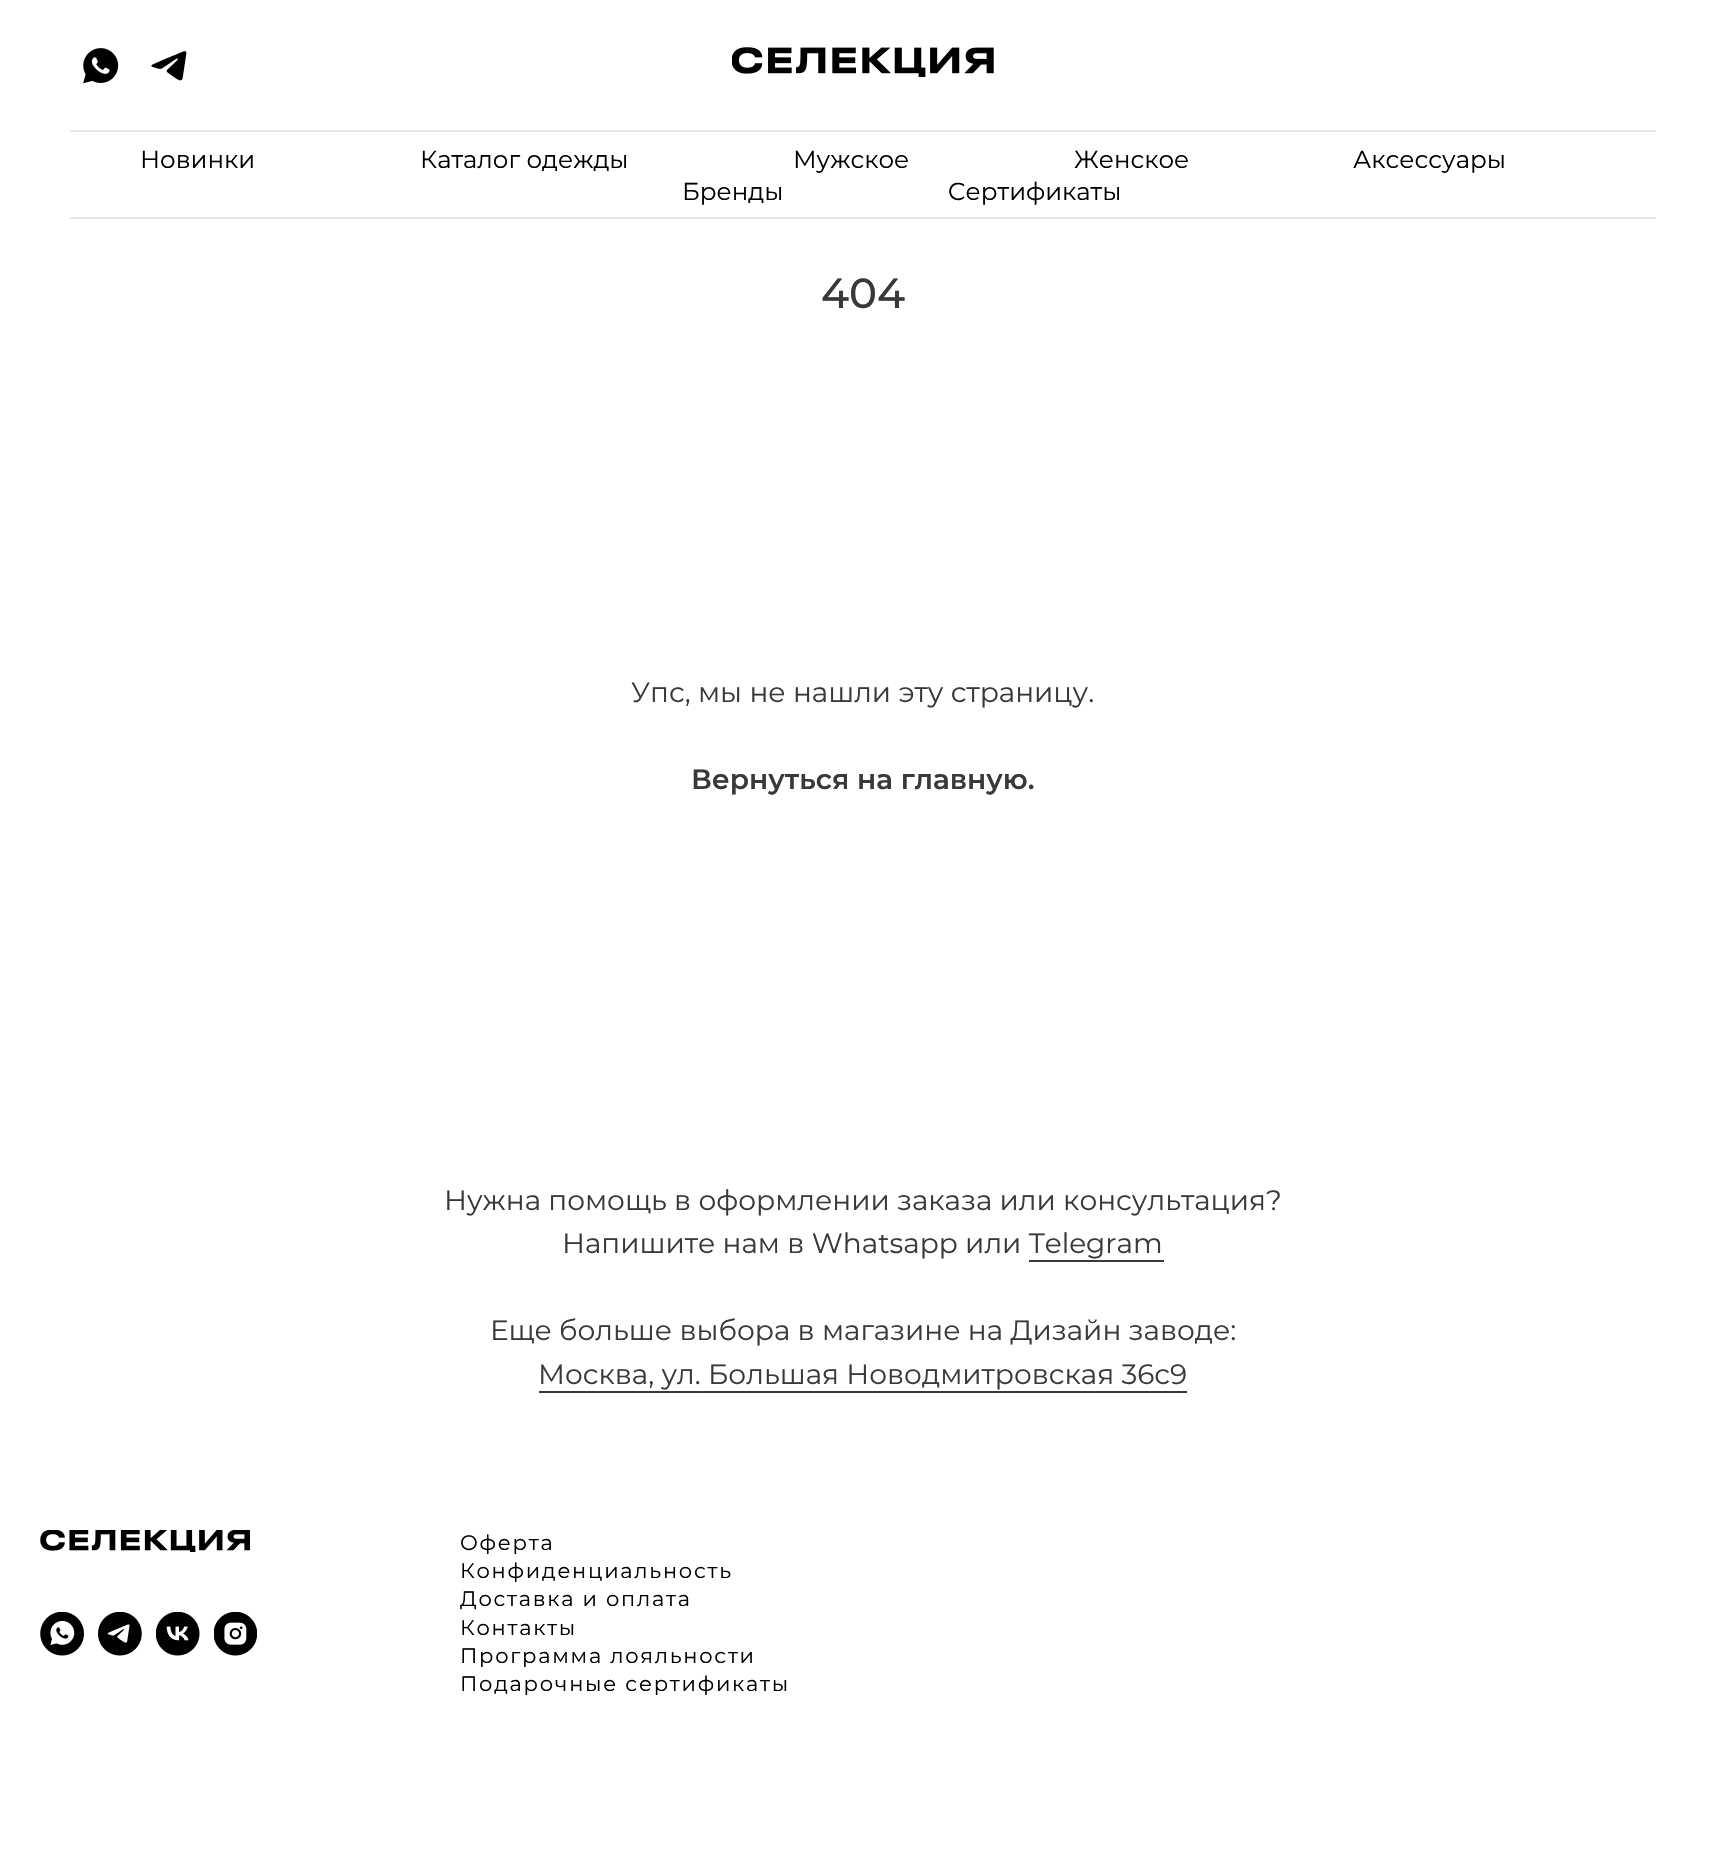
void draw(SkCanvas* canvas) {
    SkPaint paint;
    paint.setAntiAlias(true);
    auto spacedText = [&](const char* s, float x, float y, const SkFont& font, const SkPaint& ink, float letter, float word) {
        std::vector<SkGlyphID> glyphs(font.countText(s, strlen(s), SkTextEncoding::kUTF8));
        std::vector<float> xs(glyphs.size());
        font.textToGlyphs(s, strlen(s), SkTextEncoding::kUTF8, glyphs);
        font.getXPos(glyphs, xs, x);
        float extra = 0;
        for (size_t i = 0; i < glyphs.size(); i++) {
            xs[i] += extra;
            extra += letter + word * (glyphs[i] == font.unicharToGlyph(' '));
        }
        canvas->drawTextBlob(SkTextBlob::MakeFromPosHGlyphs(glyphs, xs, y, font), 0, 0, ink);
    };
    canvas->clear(0xFFFFFFFF);
    canvas->drawImageRect(SkImages::DeferredFromEncodedData(SkData::MakeFromFileName("img1.png")), SkRect::MakeXYWH(83, 48, 36, 36), SkSamplingOptions());
    canvas->drawImageRect(SkImages::DeferredFromEncodedData(SkData::MakeFromFileName("img2.png")), SkRect::MakeXYWH(151, 51, 36, 30), SkSamplingOptions());
    canvas->drawImageRect(SkImages::DeferredFromEncodedData(SkData::MakeFromFileName("img3.png")), SkRect::MakeXYWH(732, 47, 262, 30), SkSamplingOptions());
    paint.setColor(0xFFE6E6E6);
    canvas->drawRect(SkRect::MakeXYWH(70, 130, 1586, 2), paint);
    SkFont font1(fontMgr->matchFamilyStyle("Montserrat", SkFontStyle::Normal()), 24.5f);
    font1.setSubpixel(true);
    paint.setColor(0xFF000000);
    canvas->drawString("Новинки", 140, 168, font1, paint);
    canvas->drawString("Каталог одежды", 420, 168, font1, paint);
    canvas->drawString("Мужское", 793, 168, font1, paint);
    canvas->drawString("Женское", 1074, 168, font1, paint);
    canvas->drawString("Аксессуары", 1353, 168, font1, paint);
    canvas->drawString("Бренды", 682, 200, font1, paint);
    canvas->drawString("Cертификаты", 948, 200, font1, paint);
    paint.setColor(0xFFE6E6E6);
    canvas->drawRect(SkRect::MakeXYWH(70, 217, 1586, 2), paint);
    SkFont font2(fontMgr->matchFamilyStyle("Montserrat", SkFontStyle(500, SkFontStyle::kNormal_Width, SkFontStyle::kUpright_Slant)), 42);
    font2.setSubpixel(true);
    paint.setColor(0xFF373A36);
    canvas->drawString("404", 821, 308, font2, paint);
    SkFont font3(fontMgr->matchFamilyStyle("Montserrat", SkFontStyle::Normal()), 28);
    font3.setSubpixel(true);
    canvas->drawString("Упс, мы не нашли эту страницу.", 631, 702, font3, paint);
    SkFont font4(fontMgr->matchFamilyStyle("Montserrat", SkFontStyle(600, SkFontStyle::kNormal_Width, SkFontStyle::kUpright_Slant)), 28);
    font4.setSubpixel(true);
    canvas->drawString("Вернуться на главную.", 691, 789, font4, paint);
    canvas->drawString("Нужна помощь в оформлении заказа или консультация?", 444, 1210, font3, paint);
    canvas->drawString("Напишите нам в Whatsapp или Telegram", 562, 1253, font3, paint);
    canvas->drawRect(SkRect::MakeXYWH(1029, 1260, 135, 2), paint);
    canvas->drawString("Еще больше выбора в магазине на Дизайн заводе:", 490, 1340, font3, paint);
    canvas->drawString("Москва, ул. Большая Новодмитровская 36с9", 538, 1384, font3, paint);
    canvas->drawRect(SkRect::MakeXYWH(539, 1391, 648, 2), paint);
    canvas->drawImageRect(SkImages::DeferredFromEncodedData(SkData::MakeFromFileName("img4.png")), SkRect::MakeXYWH(40, 1530, 210, 22), SkSamplingOptions());
    canvas->drawImageRect(SkImages::DeferredFromEncodedData(SkData::MakeFromFileName("img5.png")), SkRect::MakeXYWH(40, 1612, 44, 44), SkSamplingOptions());
    canvas->drawImageRect(SkImages::DeferredFromEncodedData(SkData::MakeFromFileName("img6.png")), SkRect::MakeXYWH(98, 1612, 44, 44), SkSamplingOptions());
    canvas->drawImageRect(SkImages::DeferredFromEncodedData(SkData::MakeFromFileName("img7.png")), SkRect::MakeXYWH(156, 1612, 44, 44), SkSamplingOptions());
    canvas->drawImageRect(SkImages::DeferredFromEncodedData(SkData::MakeFromFileName("img8.png")), SkRect::MakeXYWH(214, 1612, 43, 44), SkSamplingOptions());
    SkFont font5(fontMgr->matchFamilyStyle("Montserrat", SkFontStyle::Normal()), 21);
    font5.setSubpixel(true);
    paint.setColor(0xFF000000);
    spacedText("Оферта", 460, 1550, font5, paint, 1.75f, 0);
    spacedText("Конфиденциальность", 460, 1578, font5, paint, 1.75f, 0);
    spacedText("Доставка и оплата", 460, 1606, font5, paint, 1.75f, 0);
    spacedText("Контакты", 460, 1635, font5, paint, 1.75f, 0);
    spacedText("Программа лояльности", 460, 1663, font5, paint, 1.75f, 0);
    spacedText("Подарочные сертификаты", 460, 1691, font5, paint, 1.75f, 0);
}
